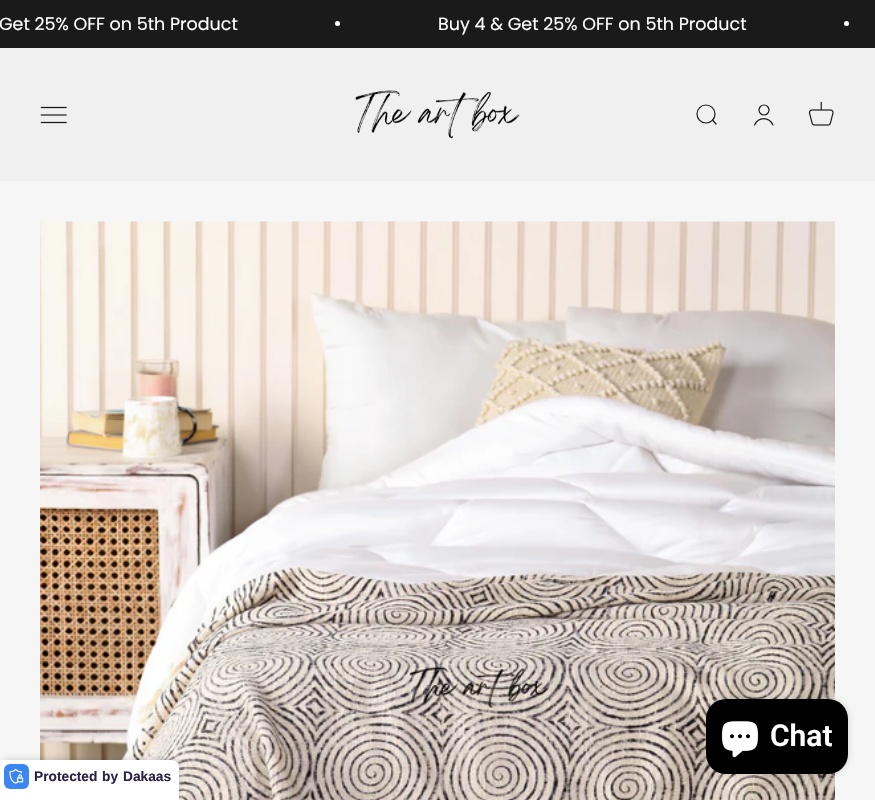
void draw(SkCanvas* canvas) {
    SkPaint paint;
    paint.setAntiAlias(true);
    canvas->clear(0xFFF6F6F6);
    paint.setColor(0xFF1A1A1A);
    canvas->drawRect(SkRect::MakeXYWH(0, 0, 875, 48), paint);
    SkFont font1(fontMgr->matchFamilyStyle("Poppins", SkFontStyle::Normal()), 17.5f);
    font1.setSubpixel(true);
    paint.setColor(0xFFFFFFFF);
    canvas->drawString("Get 25% OFF on 5th Product", -1, 30, font1, paint);
    canvas->drawCircle(337.5f, 23.5f, 2.5f, paint);
    canvas->drawString("Buy 4 & Get 25% OFF on 5th Product", 438, 30, font1, paint);
    canvas->drawCircle(846.5f, 23.5f, 2.5f, paint);
    paint.setColor(0xFFF0F0F0);
    canvas->drawRect(SkRect::MakeXYWH(0, 48, 875, 133), paint);
    canvas->drawImageRect(SkImages::DeferredFromEncodedData(SkData::MakeFromFileName("img1.png")), SkRect::MakeXYWH(40, 106, 27, 18), SkSamplingOptions());
    canvas->drawImageRect(SkImages::DeferredFromEncodedData(SkData::MakeFromFileName("img2.png")), SkRect::MakeXYWH(355, 90, 165, 49), SkSamplingOptions());
    paint.setStyle(SkPaint::kStroke_Style);
    paint.setStrokeWidth(1.2f);
    paint.setColor(0xFF1A1A1A);
    canvas->drawCircle(706, 114, 9, paint);
    paint.setStrokeCap(SkPaint::kRound_Cap);
    paint.setStrokeJoin(SkPaint::kRound_Join);
    canvas->drawPath(SkPathBuilder().moveTo(712.5f, 120).lineTo(716, 124).detach(), paint);
    paint.setStrokeCap(SkPaint::kButt_Cap);
    paint.setStrokeJoin(SkPaint::kMiter_Join);
    canvas->drawCircle(764, 110, 5, paint);
    paint.setStrokeCap(SkPaint::kRound_Cap);
    canvas->drawPath(SkPathBuilder().moveTo(754.5f, 125).cubicTo(758.5f, 116.5f, 769, 116.5f, 773, 125).detach(), paint);
    canvas->drawImageRect(SkImages::DeferredFromEncodedData(SkData::MakeFromFileName("img3.png")), SkRect::MakeXYWH(808, 101, 26, 25), SkSamplingOptions());
    canvas->drawImageRect(SkImages::DeferredFromEncodedData(SkData::MakeFromFileName("img4.png")), SkRect::MakeXYWH(40, 221, 795, 579), SkSamplingOptions());
    paint.setStyle(SkPaint::kFill_Style);
    paint.setColor(0x26000000);
    paint.setMaskFilter(SkMaskFilter::MakeBlur(kNormal_SkBlurStyle, 3));
    canvas->drawRoundRect(SkRect::MakeXYWH(706, 699, 142, 75), 20, 20, paint);
    paint.setMaskFilter(nullptr);
    paint.setColor(0xFF000000);
    canvas->drawRoundRect(SkRect::MakeXYWH(706, 699, 142, 75), 20, 20, paint);
    canvas->drawImageRect(SkImages::DeferredFromEncodedData(SkData::MakeFromFileName("img5.png")), SkRect::MakeXYWH(722, 721, 36, 37), SkSamplingOptions());
    SkFont font2(fontMgr->matchFamilyStyle("Roboto", SkFontStyle(600, SkFontStyle::kNormal_Width, SkFontStyle::kUpright_Slant)), 30);
    font2.setSubpixel(true);
    paint.setColor(0xFFFFFFFF);
    canvas->drawString("Chat", 770, 746, font2, paint);
    paint.setColor(0x29403C43);
    paint.setMaskFilter(SkMaskFilter::MakeBlur(kNormal_SkBlurStyle, 2.5f));
    canvas->drawRoundRect(SkRect::MakeXYWH(1, 758, 179, 40), 8, 8, paint);
    paint.setMaskFilter(nullptr);
    paint.setColor(0xFFFFFFFF);
    canvas->drawPath(SkPathBuilder().moveTo(0, 760).lineTo(171, 760).cubicTo(175.5f, 760, 179, 763.5f, 179, 768).lineTo(179, 800).lineTo(0, 800).close().detach(), paint);
    paint.setColor(0xFF3B86F2);
    canvas->drawRoundRect(SkRect::MakeXYWH(4, 764, 25, 25), 6, 6, paint);
    canvas->drawImageRect(SkImages::DeferredFromEncodedData(SkData::MakeFromFileName("img6.png")), SkRect::MakeXYWH(9, 768, 15, 16), SkSamplingOptions());
    SkFont font3(fontMgr->matchFamilyStyle("Liberation Sans", SkFontStyle::Bold()), 13.75f);
    font3.setSubpixel(true);
    paint.setColor(0xFF2C2245);
    canvas->drawString("Protected", 34, 781, font3, paint);
    canvas->drawString("by", 102, 781, font3, paint);
    canvas->drawString("Dakaas", 123, 781, font3, paint);
}
